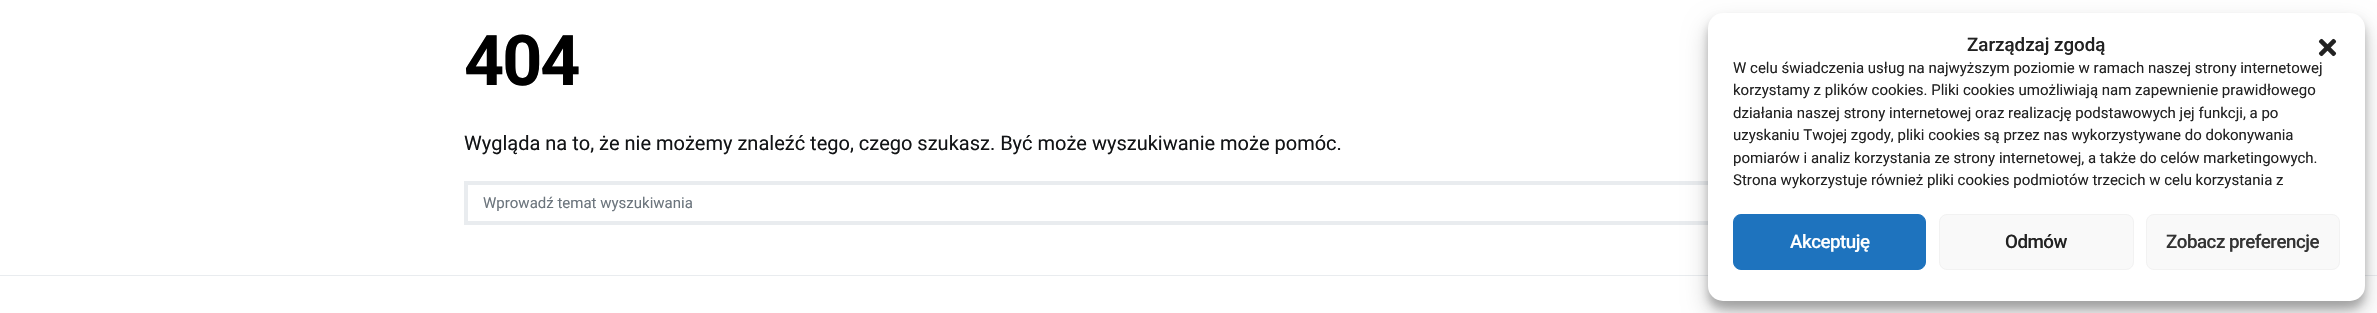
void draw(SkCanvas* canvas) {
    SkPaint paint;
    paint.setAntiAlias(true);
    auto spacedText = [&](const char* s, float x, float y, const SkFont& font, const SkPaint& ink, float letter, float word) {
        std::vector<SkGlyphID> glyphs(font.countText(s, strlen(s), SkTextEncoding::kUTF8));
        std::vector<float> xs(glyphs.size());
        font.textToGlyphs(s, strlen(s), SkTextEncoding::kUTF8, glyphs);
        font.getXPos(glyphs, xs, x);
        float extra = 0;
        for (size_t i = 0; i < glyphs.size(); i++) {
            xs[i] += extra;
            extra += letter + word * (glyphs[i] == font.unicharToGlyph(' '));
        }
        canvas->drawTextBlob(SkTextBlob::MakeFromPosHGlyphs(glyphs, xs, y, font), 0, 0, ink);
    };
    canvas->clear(0xFFFFFFFF);
    SkFont font1(fontMgr->matchFamilyStyle("Roboto", SkFontStyle::Bold()), 70);
    font1.setSubpixel(true);
    paint.setColor(0xFF000000);
    spacedText("404", 464, 85, font1, paint, -2, 0);
    SkFont font2(fontMgr->matchFamilyStyle("Roboto", SkFontStyle::Normal()), 20);
    font2.setSubpixel(true);
    paint.setColor(0xFF121416);
    canvas->drawString("Wygląda na to, że nie możemy znaleźć tego, czego szukasz. Być może wyszukiwanie może pomóc.", 464, 150, font2, paint);
    paint.setColor(0xFFE9ECEF);
    canvas->drawRect(SkRect::MakeXYWH(464, 181, 1244, 44), paint);
    paint.setColor(0xFFFFFFFF);
    canvas->drawRect(SkRect::MakeXYWH(468, 185, 1240, 36), paint);
    SkFont font3(fontMgr->matchFamilyStyle("Roboto", SkFontStyle::Normal()), 15);
    font3.setSubpixel(true);
    paint.setColor(0xFF6C757D);
    canvas->drawString("Wprowadź temat wyszukiwania", 483, 208, font3, paint);
    paint.setColor(0xFFE9ECEF);
    canvas->drawRect(SkRect::MakeXYWH(0, 275, 2377, 1), paint);
    paint.setColor(0x3B000000);
    paint.setMaskFilter(SkMaskFilter::MakeBlur(kNormal_SkBlurStyle, 4));
    canvas->drawRoundRect(SkRect::MakeXYWH(1708, 20, 657, 289), 15, 15, paint);
    paint.setMaskFilter(nullptr);
    paint.setColor(0x30000000);
    paint.setMaskFilter(SkMaskFilter::MakeBlur(kNormal_SkBlurStyle, 12.5f));
    canvas->drawRoundRect(SkRect::MakeXYWH(1708, 25, 657, 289), 15, 15, paint);
    paint.setMaskFilter(nullptr);
    paint.setColor(0xFFFFFFFF);
    canvas->drawRoundRect(SkRect::MakeXYWH(1708, 13, 657, 288), 15, 15, paint);
    SkFont font4(fontMgr->matchFamilyStyle("Roboto", SkFontStyle(500, SkFontStyle::kNormal_Width, SkFontStyle::kUpright_Slant)), 18.75f);
    font4.setSubpixel(true);
    paint.setColor(0xFF222222);
    canvas->drawString("Zarządzaj zgodą", 1967, 51, font4, paint);
    canvas->drawImageRect(SkImages::DeferredFromEncodedData(SkData::MakeFromFileName("img1.png")), SkRect::MakeXYWH(2318, 38, 19, 19), SkSamplingOptions());
    canvas->drawString("W celu świadczenia usług na najwyższym poziomie w ramach naszej strony internetowej", 1733, 73, font3, paint);
    canvas->drawString("korzystamy z plików cookies. Pliki cookies umożliwiają nam zapewnienie prawidłowego", 1733, 95, font3, paint);
    canvas->drawString("działania naszej strony internetowej oraz realizację podstawowych jej funkcji, a po", 1733, 118, font3, paint);
    canvas->drawString("uzyskaniu Twojej zgody, pliki cookies są przez nas wykorzystywane do dokonywania", 1733, 140, font3, paint);
    canvas->drawString("pomiarów i analiz korzystania ze strony internetowej, a także do celów marketingowych.", 1733, 163, font3, paint);
    canvas->drawString("Strona wykorzystuje również pliki cookies podmiotów trzecich w celu korzystania z", 1733, 185, font3, paint);
    paint.setColor(0xFF1E73BE);
    canvas->drawRoundRect(SkRect::MakeXYWH(1733.5f, 214.5f, 192, 55), 7.5f, 7.5f, paint);
    paint.setStyle(SkPaint::kStroke_Style);
    paint.setStrokeWidth(1);
    canvas->drawRoundRect(SkRect::MakeXYWH(1733.5f, 214.5f, 192, 55), 7.5f, 7.5f, paint);
    paint.setStyle(SkPaint::kFill_Style);
    paint.setColor(0xFFFFFFFF);
    spacedText("Akceptuję", 1790, 248, font4, paint, -0.5f, 0);
    paint.setColor(0xFFF9F9F9);
    canvas->drawRoundRect(SkRect::MakeXYWH(1939.5f, 214.5f, 194, 55), 7.5f, 7.5f, paint);
    paint.setStyle(SkPaint::kStroke_Style);
    paint.setColor(0xFFF2F2F2);
    canvas->drawRoundRect(SkRect::MakeXYWH(1939.5f, 214.5f, 194, 55), 7.5f, 7.5f, paint);
    paint.setStyle(SkPaint::kFill_Style);
    paint.setColor(0xFF222222);
    spacedText("Odmów", 2005, 248, font4, paint, -0.5f, 0);
    paint.setColor(0xFFF9F9F9);
    canvas->drawRoundRect(SkRect::MakeXYWH(2146.5f, 214.5f, 193, 55), 7.5f, 7.5f, paint);
    paint.setStyle(SkPaint::kStroke_Style);
    paint.setColor(0xFFF2F2F2);
    canvas->drawRoundRect(SkRect::MakeXYWH(2146.5f, 214.5f, 193, 55), 7.5f, 7.5f, paint);
    paint.setStyle(SkPaint::kFill_Style);
    paint.setColor(0xFF333333);
    spacedText("Zobacz preferencje", 2166, 248, font4, paint, -0.5f, 0);
}
